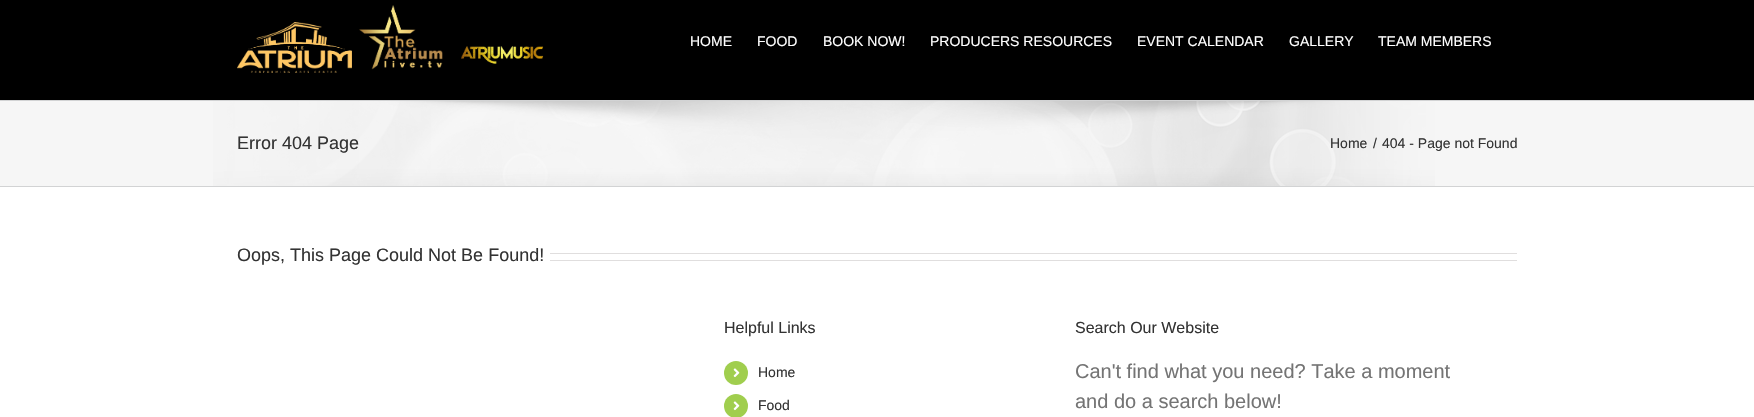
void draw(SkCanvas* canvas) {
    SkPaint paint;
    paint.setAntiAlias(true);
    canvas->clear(0xFFFFFFFF);
    paint.setColor(0xFF000000);
    canvas->drawRect(SkRect::MakeXYWH(0, 0, 1754, 100), paint);
    canvas->drawImageRect(SkImages::DeferredFromEncodedData(SkData::MakeFromFileName("img1.png")), SkRect::MakeXYWH(237, 22, 115, 51), SkSamplingOptions());
    canvas->drawImageRect(SkImages::DeferredFromEncodedData(SkData::MakeFromFileName("img2.png")), SkRect::MakeXYWH(359, 5, 84, 65), SkSamplingOptions());
    canvas->drawImageRect(SkImages::DeferredFromEncodedData(SkData::MakeFromFileName("img3.png")), SkRect::MakeXYWH(461, 46, 83, 18), SkSamplingOptions());
    SkFont font1(fontMgr->matchFamilyStyle("Liberation Sans", SkFontStyle::Normal()), 14);
    font1.setSubpixel(true);
    paint.setColor(0xFFFFFFFF);
    canvas->drawString("HOME", 690, 46, font1, paint);
    canvas->drawString("FOOD", 757, 46, font1, paint);
    canvas->drawString("BOOK NOW!", 823, 46, font1, paint);
    canvas->drawString("PRODUCERS RESOURCES", 930, 46, font1, paint);
    canvas->drawString("EVENT CALENDAR", 1137, 46, font1, paint);
    canvas->drawString("GALLERY", 1289, 46, font1, paint);
    canvas->drawString("TEAM MEMBERS", 1378, 46, font1, paint);
    paint.setColor(0xFFF6F6F6);
    canvas->drawRect(SkRect::MakeXYWH(0, 101, 1754, 85), paint);
    canvas->drawImageRect(SkImages::DeferredFromEncodedData(SkData::MakeFromFileName("img4.png")), SkRect::MakeXYWH(213, 101, 1222, 85), SkSamplingOptions());
    paint.setColor(0xFFD2D3D4);
    canvas->drawRect(SkRect::MakeXYWH(0, 100, 1754, 1), paint);
    canvas->drawRect(SkRect::MakeXYWH(0, 186, 1754, 1), paint);
    SkFont font2(fontMgr->matchFamilyStyle("Liberation Sans", SkFontStyle::Normal()), 18);
    font2.setSubpixel(true);
    paint.setColor(0xFF333333);
    canvas->drawString("Error 404 Page", 237, 149, font2, paint);
    canvas->drawString("Home", 1330, 148, font1, paint);
    canvas->drawString("/", 1373, 148, font1, paint);
    canvas->drawString("404 - Page not Found", 1382, 148, font1, paint);
    canvas->drawString("Oops, This Page Could Not Be Found!", 237, 261, font2, paint);
    paint.setColor(0xFFE0DEDE);
    canvas->drawRect(SkRect::MakeXYWH(550, 253, 967, 1), paint);
    canvas->drawRect(SkRect::MakeXYWH(550, 260, 967, 1), paint);
    SkFont font3(fontMgr->matchFamilyStyle("Liberation Sans", SkFontStyle::Normal()), 16);
    font3.setSubpixel(true);
    paint.setColor(0xFF333333);
    canvas->drawString("Helpful Links", 724, 333, font3, paint);
    paint.setColor(0xFFA0CE4E);
    canvas->drawCircle(736, 373, 12, paint);
    canvas->drawImageRect(SkImages::DeferredFromEncodedData(SkData::MakeFromFileName("img5.png")), SkRect::MakeXYWH(733, 368, 7, 10), SkSamplingOptions());
    paint.setColor(0xFF333333);
    canvas->drawString("Home", 758, 377, font1, paint);
    paint.setColor(0xFFA0CE4E);
    canvas->drawCircle(736, 406, 12, paint);
    canvas->drawImageRect(SkImages::DeferredFromEncodedData(SkData::MakeFromFileName("img5.png")), SkRect::MakeXYWH(733, 401, 7, 10), SkSamplingOptions());
    paint.setColor(0xFF333333);
    canvas->drawString("Food", 758, 410, font1, paint);
    canvas->drawString("Search Our Website", 1075, 333, font3, paint);
    SkFont font4(fontMgr->matchFamilyStyle("Liberation Sans", SkFontStyle::Normal()), 20);
    font4.setSubpixel(true);
    paint.setColor(0xFF747474);
    canvas->drawString("Can't find what you need? Take a moment", 1075, 378, font4, paint);
    canvas->drawString("and do a search below!", 1075, 408, font4, paint);
}
